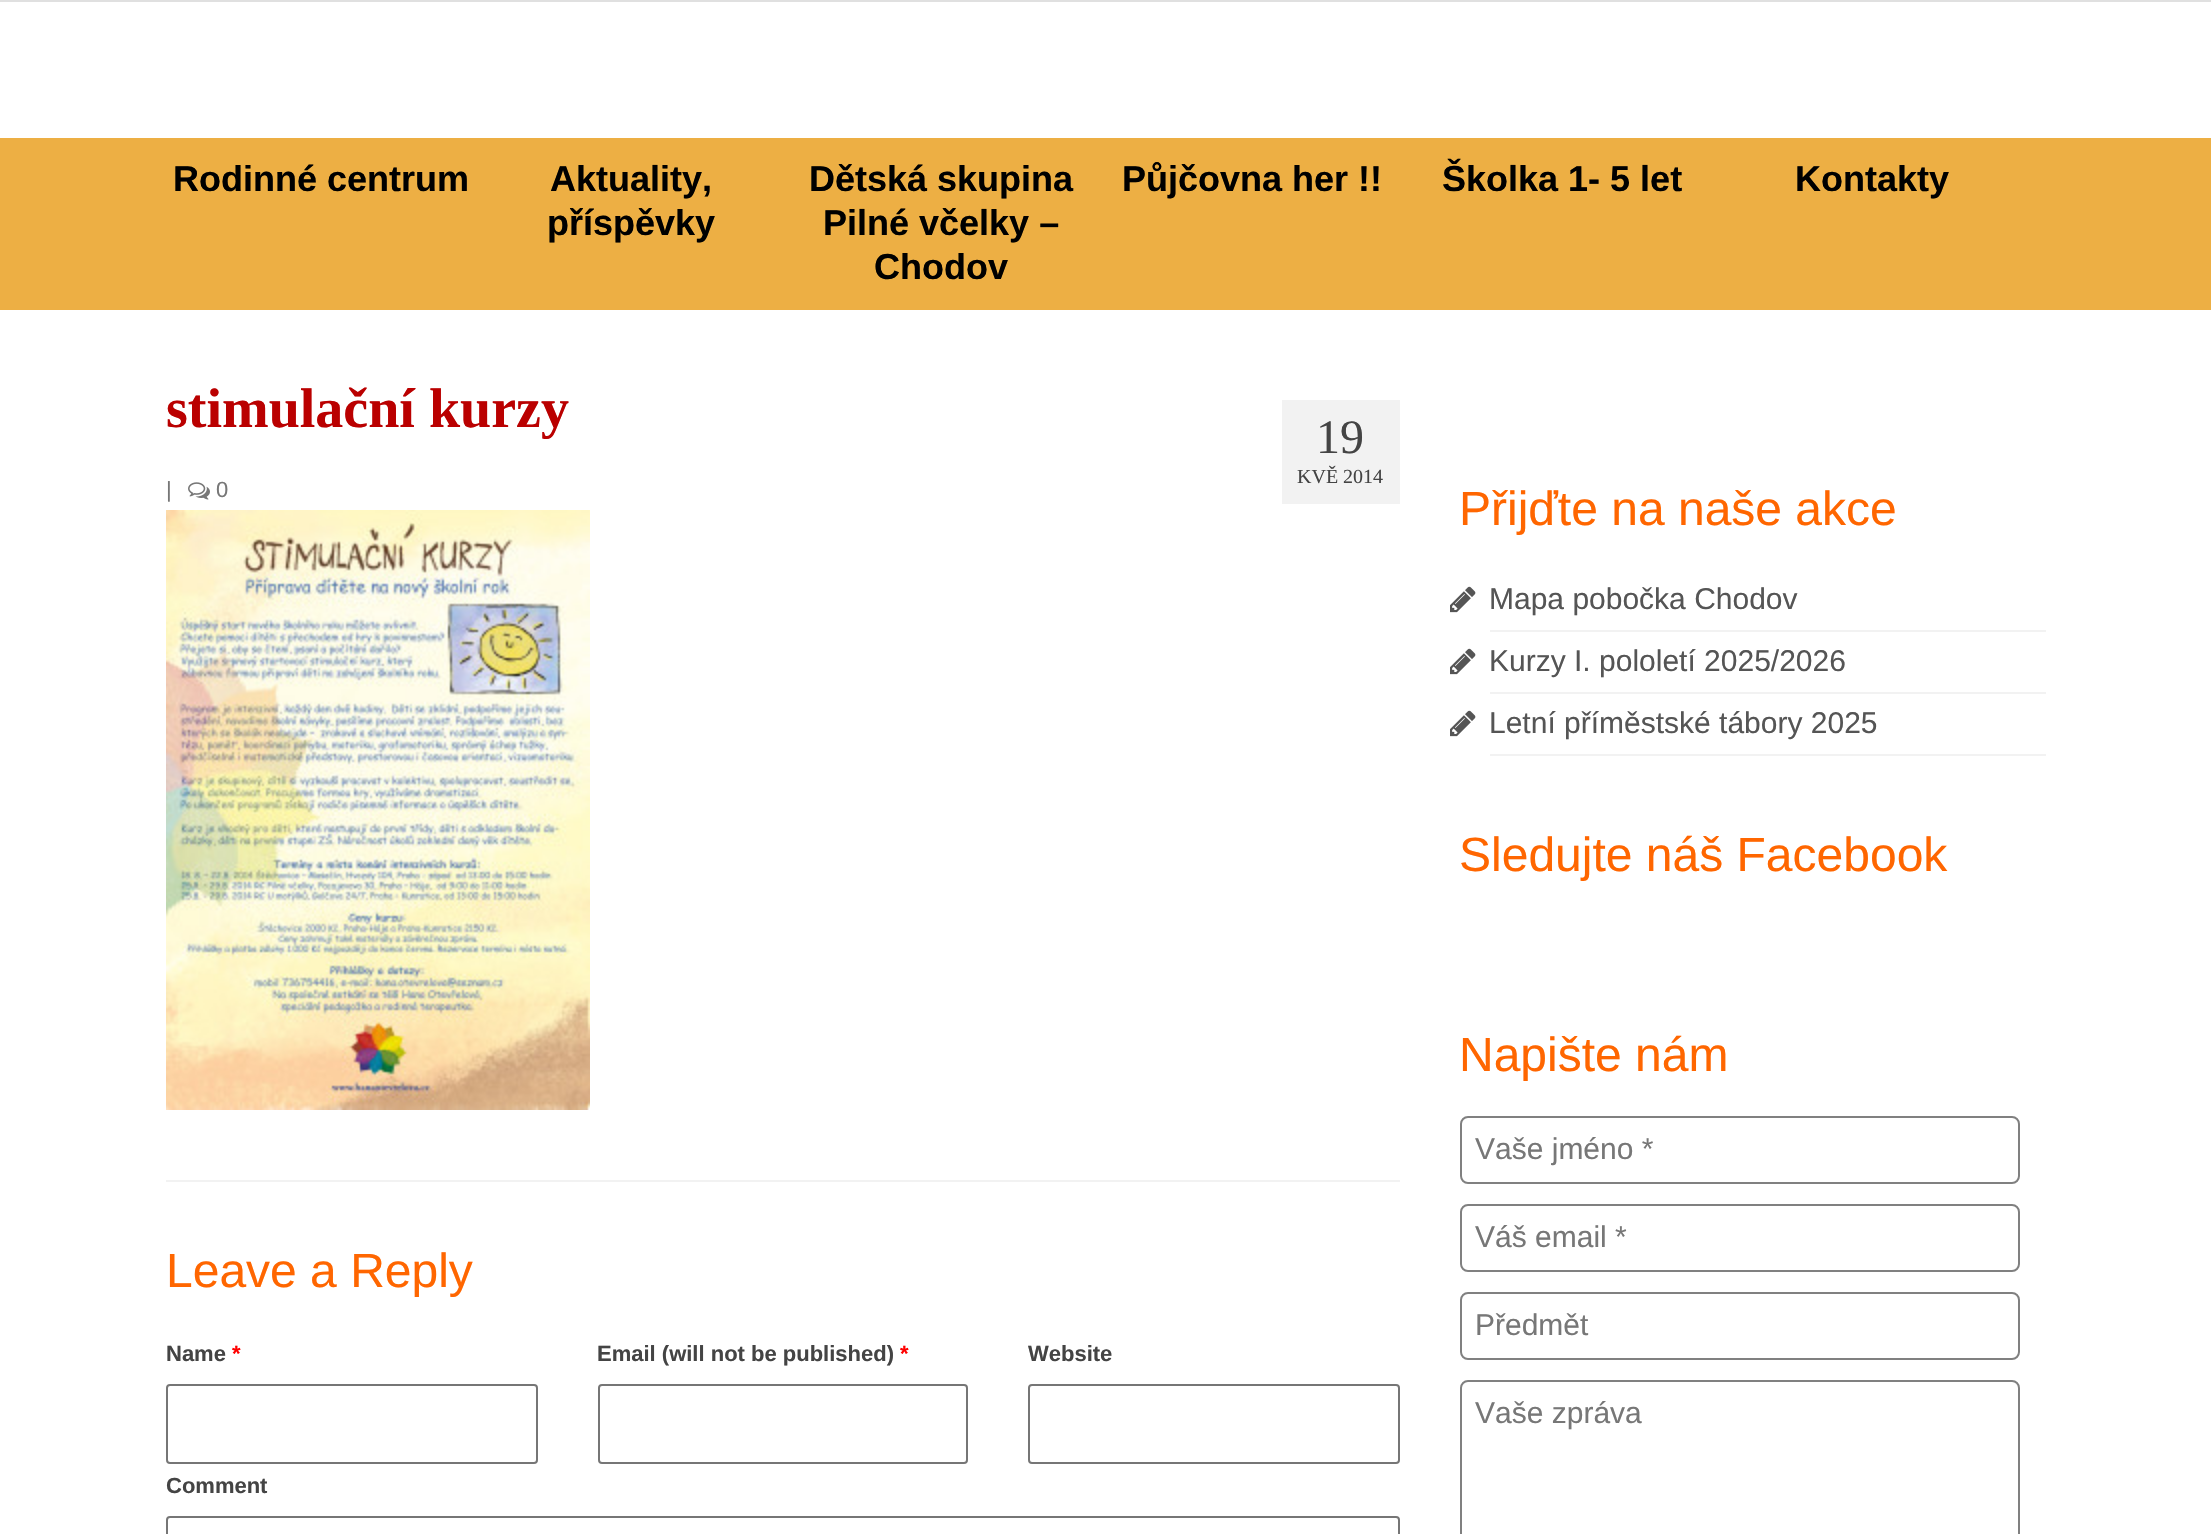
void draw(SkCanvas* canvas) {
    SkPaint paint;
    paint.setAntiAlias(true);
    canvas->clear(0xFFFFFFFF);
    paint.setColor(0xFFE0E0E0);
    canvas->drawRect(SkRect::MakeXYWH(0, 0, 2211, 2), paint);
    paint.setColor(0xFFEDAF44);
    canvas->drawRect(SkRect::MakeXYWH(0, 138, 2211, 172), paint);
    SkFont font1(fontMgr->matchFamilyStyle("Liberation Sans", SkFontStyle::Bold()), 36);
    font1.setSubpixel(true);
    paint.setColor(0xFF000000);
    canvas->drawString("Rodinné centrum", 173, 191, font1, paint);
    canvas->drawString("Aktuality,", 550, 191, font1, paint);
    canvas->drawString("příspěvky", 547, 235, font1, paint);
    canvas->drawString("Dětská skupina", 809, 191, font1, paint);
    canvas->drawString("Pilné včelky –", 823, 235, font1, paint);
    canvas->drawString("Chodov", 874, 279, font1, paint);
    canvas->drawString("Půjčovna her !!", 1122, 191, font1, paint);
    canvas->drawString("Školka 1- 5 let", 1442, 191, font1, paint);
    canvas->drawString("Kontakty", 1795, 191, font1, paint);
    SkFont font2(fontMgr->matchFamilyStyle("Liberation Serif", SkFontStyle::Bold()), 56);
    font2.setSubpixel(true);
    paint.setColor(0xFFBA0000);
    canvas->drawString("stimulační kurzy", 166, 427, font2, paint);
    SkFont font3(fontMgr->matchFamilyStyle("Liberation Sans", SkFontStyle::Normal()), 22);
    font3.setSubpixel(true);
    paint.setColor(0xFF777777);
    canvas->drawString("|", 166, 497, font3, paint);
    canvas->drawImageRect(SkImages::DeferredFromEncodedData(SkData::MakeFromFileName("img1.png")), SkRect::MakeXYWH(188, 482, 22, 18), SkSamplingOptions());
    canvas->drawString("0", 216, 497, font3, paint);
    paint.setColor(0xFFF2F2F2);
    canvas->drawRect(SkRect::MakeXYWH(1282, 400, 118, 104), paint);
    SkFont font4(fontMgr->matchFamilyStyle("Liberation Serif", SkFontStyle::Normal()), 48);
    font4.setSubpixel(true);
    paint.setColor(0xFF444444);
    canvas->drawString("19", 1316, 453, font4, paint);
    SkFont font5(fontMgr->matchFamilyStyle("Liberation Serif", SkFontStyle::Normal()), 20);
    font5.setSubpixel(true);
    canvas->drawString("KVĚ 2014", 1297, 483, font5, paint);
    canvas->drawImageRect(SkImages::DeferredFromEncodedData(SkData::MakeFromFileName("img2.png")), SkRect::MakeXYWH(166, 510, 424, 600), SkSamplingOptions());
    paint.setColor(0xFFF2F2F2);
    canvas->drawRect(SkRect::MakeXYWH(166, 1180, 1234, 2), paint);
    SkFont font6(fontMgr->matchFamilyStyle("Liberation Sans", SkFontStyle::Normal()), 48);
    font6.setSubpixel(true);
    paint.setColor(0xFFFF6600);
    canvas->drawString("Leave a Reply", 166, 1287, font6, paint);
    SkFont font7(fontMgr->matchFamilyStyle("Liberation Sans", SkFontStyle::Bold()), 22);
    font7.setSubpixel(true);
    paint.setColor(0xFF444444);
    canvas->drawString("Name", 166, 1361, font7, paint);
    paint.setColor(0xFFFF0000);
    canvas->drawString("*", 232, 1361, font7, paint);
    paint.setStyle(SkPaint::kStroke_Style);
    paint.setStrokeWidth(2);
    paint.setColor(0xFF767676);
    canvas->drawRoundRect(SkRect::MakeXYWH(167, 1385, 370, 78), 3, 3, paint);
    paint.setStyle(SkPaint::kFill_Style);
    paint.setColor(0xFF444444);
    canvas->drawString("Email (will not be published)", 597, 1361, font7, paint);
    paint.setColor(0xFFFF0000);
    canvas->drawString("*", 900, 1361, font7, paint);
    paint.setStyle(SkPaint::kStroke_Style);
    paint.setColor(0xFF767676);
    canvas->drawRoundRect(SkRect::MakeXYWH(599, 1385, 368, 78), 3, 3, paint);
    paint.setStyle(SkPaint::kFill_Style);
    paint.setColor(0xFF444444);
    canvas->drawString("Website", 1028, 1361, font7, paint);
    paint.setStyle(SkPaint::kStroke_Style);
    paint.setColor(0xFF767676);
    canvas->drawRoundRect(SkRect::MakeXYWH(1029, 1385, 370, 78), 3, 3, paint);
    paint.setStyle(SkPaint::kFill_Style);
    paint.setColor(0xFF444444);
    canvas->drawString("Comment", 166, 1493, font7, paint);
    paint.setStyle(SkPaint::kStroke_Style);
    paint.setColor(0xFF767676);
    canvas->drawRoundRect(SkRect::MakeXYWH(167, 1517, 1232, 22), 3, 3, paint);
    paint.setStyle(SkPaint::kFill_Style);
    paint.setColor(0xFFFF6600);
    canvas->drawString("Přijďte na naše akce", 1459, 525, font6, paint);
    paint.setColor(0xFFF2F2F2);
    canvas->drawRect(SkRect::MakeXYWH(1490, 630, 556, 2), paint);
    canvas->drawImageRect(SkImages::DeferredFromEncodedData(SkData::MakeFromFileName("img3.png")), SkRect::MakeXYWH(1450, 586, 26, 27), SkSamplingOptions());
    SkFont font8(fontMgr->matchFamilyStyle("Liberation Sans", SkFontStyle::Normal()), 30);
    font8.setSubpixel(true);
    paint.setColor(0xFF555555);
    canvas->drawString("Mapa pobočka Chodov", 1489, 609, font8, paint);
    paint.setColor(0xFFF2F2F2);
    canvas->drawRect(SkRect::MakeXYWH(1490, 692, 556, 2), paint);
    canvas->drawImageRect(SkImages::DeferredFromEncodedData(SkData::MakeFromFileName("img3.png")), SkRect::MakeXYWH(1450, 648, 26, 27), SkSamplingOptions());
    paint.setColor(0xFF555555);
    canvas->drawString("Kurzy I. pololetí 2025/2026", 1489, 671, font8, paint);
    paint.setColor(0xFFF2F2F2);
    canvas->drawRect(SkRect::MakeXYWH(1490, 754, 556, 2), paint);
    canvas->drawImageRect(SkImages::DeferredFromEncodedData(SkData::MakeFromFileName("img3.png")), SkRect::MakeXYWH(1450, 710, 26, 27), SkSamplingOptions());
    paint.setColor(0xFF555555);
    canvas->drawString("Letní příměstské tábory 2025", 1489, 733, font8, paint);
    paint.setColor(0xFFFF6600);
    canvas->drawString("Sledujte náš Facebook", 1459, 871, font6, paint);
    canvas->drawString("Napište nám", 1459, 1071, font6, paint);
    paint.setStyle(SkPaint::kStroke_Style);
    paint.setColor(0xFF808080);
    canvas->drawRoundRect(SkRect::MakeXYWH(1461, 1117, 558, 66), 7, 7, paint);
    paint.setStyle(SkPaint::kFill_Style);
    paint.setColor(0xFF777777);
    canvas->drawString("Vaše jméno *", 1475, 1159, font8, paint);
    paint.setStyle(SkPaint::kStroke_Style);
    paint.setColor(0xFF808080);
    canvas->drawRoundRect(SkRect::MakeXYWH(1461, 1205, 558, 66), 7, 7, paint);
    paint.setStyle(SkPaint::kFill_Style);
    paint.setColor(0xFF777777);
    canvas->drawString("Váš email *", 1475, 1247, font8, paint);
    paint.setStyle(SkPaint::kStroke_Style);
    paint.setColor(0xFF808080);
    canvas->drawRoundRect(SkRect::MakeXYWH(1461, 1293, 558, 66), 7, 7, paint);
    paint.setStyle(SkPaint::kFill_Style);
    paint.setColor(0xFF777777);
    canvas->drawString("Předmět", 1475, 1335, font8, paint);
    paint.setStyle(SkPaint::kStroke_Style);
    paint.setColor(0xFF808080);
    canvas->drawRoundRect(SkRect::MakeXYWH(1461, 1381, 558, 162), 7, 7, paint);
    paint.setStyle(SkPaint::kFill_Style);
    paint.setColor(0xFF777777);
    canvas->drawString("Vaše zpráva", 1475, 1423, font8, paint);
}
